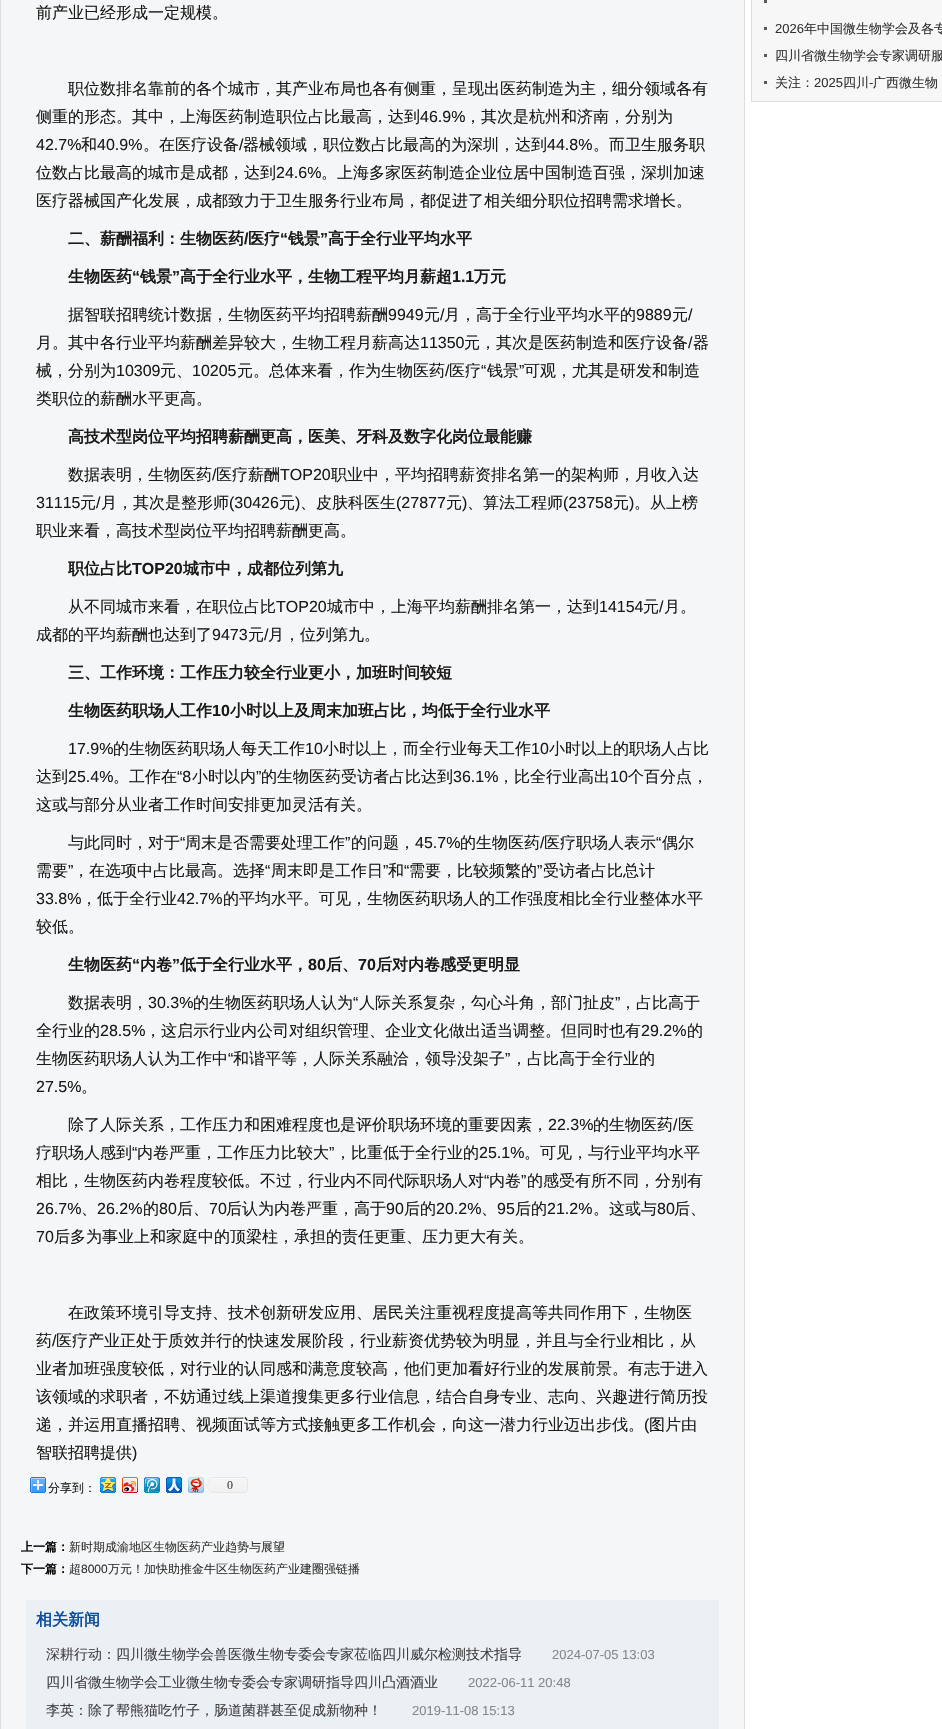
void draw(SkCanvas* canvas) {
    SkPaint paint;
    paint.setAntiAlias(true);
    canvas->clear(0xFFFFFFFF);
    paint.setColor(0xFFF5F6F7);
    canvas->drawRect(SkRect::MakeXYWH(1, 0, 743, 1729), paint);
    paint.setColor(0xFFDDDDDD);
    canvas->drawPath(SkPathBuilder().moveTo(745, -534).lineTo(745, 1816).lineTo(744, 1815).lineTo(744, -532).close().detach(), paint);
    canvas->drawPath(SkPathBuilder().moveTo(0, 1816).lineTo(0, -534).lineTo(1, -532).lineTo(1, 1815).close().detach(), paint);
    SkFont font1(fontMgr->matchFamilyStyle("WenQuanYi Zen Hei", SkFontStyle(500, SkFontStyle::kNormal_Width, SkFontStyle::kUpright_Slant)), 16);
    font1.setSubpixel(true);
    paint.setColor(0xFF1A1A1A);
    canvas->drawString("前产业已经形成一定规模。", 36, 18, font1, paint);
    canvas->drawString("职位数排名靠前的各个城市，其产业布局也各有侧重，呈现出医药制造为主，细分领域各有", 68, 94, font1, paint);
    canvas->drawString("侧重的形态。其中，上海医药制造职位占比最高，达到", 36, 122, font1, paint);
    SkFont font2(fontMgr->matchFamilyStyle("Liberation Sans", SkFontStyle::Normal()), 16);
    font2.setSubpixel(true);
    canvas->drawString("46.9%", 420, 122, font2, paint);
    canvas->drawString("，其次是杭州和济南，分别为", 465, 122, font1, paint);
    canvas->drawString("42.7%", 36, 150, font2, paint);
    canvas->drawString("和", 81, 150, font1, paint);
    canvas->drawString("40.9%", 97, 150, font2, paint);
    canvas->drawString("。在医疗设备", 143, 150, font1, paint);
    canvas->drawString("/", 239, 150, font2, paint);
    canvas->drawString("器械领域，职位数占比最高的为深圳，达到", 243, 150, font1, paint);
    canvas->drawString("44.8%", 547, 150, font2, paint);
    canvas->drawString("。而卫生服务职", 593, 150, font1, paint);
    canvas->drawString("位数占比最高的城市是成都，达到", 36, 178, font1, paint);
    canvas->drawString("24.6%", 276, 178, font2, paint);
    canvas->drawString("。上海多家医药制造企业位居中国制造百强，深圳加速", 321, 178, font1, paint);
    canvas->drawString("医疗器械国产化发展，成都致力于卫生服务行业布局，都促进了相关细分职位招聘需求增长。", 36, 206, font1, paint);
    SkFont font3(fontMgr->matchFamilyStyle("WenQuanYi Zen Hei", SkFontStyle::Bold()), 16);
    font3.setSubpixel(true);
    canvas->drawString("二、薪酬福利：生物医药", 68, 244, font3, paint);
    SkFont font4(fontMgr->matchFamilyStyle("Liberation Sans", SkFontStyle::Bold()), 16);
    font4.setSubpixel(true);
    canvas->drawString("/", 244, 244, font4, paint);
    canvas->drawString("医疗", 248, 244, font3, paint);
    canvas->drawString("“", 280, 244, font4, paint);
    canvas->drawString("钱景", 288, 244, font3, paint);
    canvas->drawString("”", 320, 244, font4, paint);
    canvas->drawString("高于全行业平均水平", 328, 244, font3, paint);
    canvas->drawString("生物医药", 68, 282, font3, paint);
    canvas->drawString("“", 132, 282, font4, paint);
    canvas->drawString("钱景", 140, 282, font3, paint);
    canvas->drawString("”", 172, 282, font4, paint);
    canvas->drawString("高于全行业水平，生物工程平均月薪超", 180, 282, font3, paint);
    canvas->drawString("1.1", 452, 282, font4, paint);
    canvas->drawString("万元", 474, 282, font3, paint);
    canvas->drawString("据智联招聘统计数据，生物医药平均招聘薪酬", 68, 320, font1, paint);
    canvas->drawString("9949", 388, 320, font2, paint);
    canvas->drawString("元", 424, 320, font1, paint);
    canvas->drawString("/", 440, 320, font2, paint);
    canvas->drawString("月，高于全行业平均水平的", 444, 320, font1, paint);
    canvas->drawString("9889", 636, 320, font2, paint);
    canvas->drawString("元", 672, 320, font1, paint);
    canvas->drawString("/", 688, 320, font2, paint);
    canvas->drawString("月。其中各行业平均薪酬差异较大，生物工程月薪高达", 36, 348, font1, paint);
    canvas->drawString("11350", 420, 348, font2, paint);
    canvas->drawString("元，其次是医药制造和医疗设备", 464, 348, font1, paint);
    canvas->drawString("/", 688, 348, font2, paint);
    canvas->drawString("器", 693, 348, font1, paint);
    canvas->drawString("械，分别为", 36, 376, font1, paint);
    canvas->drawString("10309", 116, 376, font2, paint);
    canvas->drawString("元、", 160, 376, font1, paint);
    canvas->drawString("10205", 192, 376, font2, paint);
    canvas->drawString("元。总体来看，作为生物医药", 237, 376, font1, paint);
    canvas->drawString("/", 445, 376, font2, paint);
    canvas->drawString("医疗", 449, 376, font1, paint);
    canvas->drawString("“", 481, 376, font2, paint);
    canvas->drawString("钱景", 487, 376, font1, paint);
    canvas->drawString("”", 519, 376, font2, paint);
    canvas->drawString("可观，尤其是研发和制造", 524, 376, font1, paint);
    canvas->drawString("类职位的薪酬水平更高。", 36, 404, font1, paint);
    canvas->drawString("高技术型岗位平均招聘薪酬更高，医美、牙科及数字化岗位最能赚", 68, 442, font3, paint);
    canvas->drawString("数据表明，生物医药", 68, 480, font1, paint);
    canvas->drawString("/", 212, 480, font2, paint);
    canvas->drawString("医疗薪酬", 216, 480, font1, paint);
    canvas->drawString("TOP20", 280, 480, font2, paint);
    canvas->drawString("职业中，平均招聘薪资排名第一的架构师，月收入达", 331, 480, font1, paint);
    canvas->drawString("31115", 36, 508, font2, paint);
    canvas->drawString("元", 80, 508, font1, paint);
    canvas->drawString("/", 96, 508, font2, paint);
    canvas->drawString("月，其次是整形师", 101, 508, font1, paint);
    canvas->drawString("(30426", 229, 508, font2, paint);
    canvas->drawString("元", 279, 508, font1, paint);
    canvas->drawString(")", 295, 508, font2, paint);
    canvas->drawString("、皮肤科医生", 300, 508, font1, paint);
    canvas->drawString("(27877", 396, 508, font2, paint);
    canvas->drawString("元", 446, 508, font1, paint);
    canvas->drawString(")", 462, 508, font2, paint);
    canvas->drawString("、算法工程师", 467, 508, font1, paint);
    canvas->drawString("(23758", 563, 508, font2, paint);
    canvas->drawString("元", 613, 508, font1, paint);
    canvas->drawString(")", 629, 508, font2, paint);
    canvas->drawString("。从上榜", 634, 508, font1, paint);
    canvas->drawString("职业来看，高技术型岗位平均招聘薪酬更高。", 36, 536, font1, paint);
    canvas->drawString("职位占比", 68, 574, font3, paint);
    canvas->drawString("TOP20", 132, 574, font4, paint);
    canvas->drawString("城市中，成都位列第九", 183, 574, font3, paint);
    canvas->drawString("从不同城市来看，在职位占比", 68, 612, font1, paint);
    canvas->drawString("TOP20", 276, 612, font2, paint);
    canvas->drawString("城市中，上海平均薪酬排名第一，达到", 327, 612, font1, paint);
    canvas->drawString("14154", 599, 612, font2, paint);
    canvas->drawString("元", 643, 612, font1, paint);
    canvas->drawString("/", 659, 612, font2, paint);
    canvas->drawString("月。", 664, 612, font1, paint);
    canvas->drawString("成都的平均薪酬也达到了", 36, 640, font1, paint);
    canvas->drawString("9473", 212, 640, font2, paint);
    canvas->drawString("元", 248, 640, font1, paint);
    canvas->drawString("/", 264, 640, font2, paint);
    canvas->drawString("月，位列第九。", 268, 640, font1, paint);
    canvas->drawString("三、工作环境：工作压力较全行业更小，加班时间较短", 68, 678, font3, paint);
    canvas->drawString("生物医药职场人工作", 68, 716, font3, paint);
    canvas->drawString("10", 212, 716, font4, paint);
    canvas->drawString("小时以上及周末加班占比，均低于全行业水平", 230, 716, font3, paint);
    canvas->drawString("17.9%", 68, 754, font2, paint);
    canvas->drawString("的生物医药职场人每天工作", 113, 754, font1, paint);
    canvas->drawString("10", 305, 754, font2, paint);
    canvas->drawString("小时以上，而全行业每天工作", 323, 754, font1, paint);
    canvas->drawString("10", 531, 754, font2, paint);
    canvas->drawString("小时以上的职场人占比", 549, 754, font1, paint);
    canvas->drawString("达到", 36, 782, font1, paint);
    canvas->drawString("25.4%", 68, 782, font2, paint);
    canvas->drawString("。工作在", 113, 782, font1, paint);
    canvas->drawString("“8", 177, 782, font2, paint);
    canvas->drawString("小时以内", 192, 782, font1, paint);
    canvas->drawString("”", 256, 782, font2, paint);
    canvas->drawString("的生物医药受访者占比达到", 261, 782, font1, paint);
    canvas->drawString("36.1%", 453, 782, font2, paint);
    canvas->drawString("，比全行业高出", 498, 782, font1, paint);
    canvas->drawString("10", 610, 782, font2, paint);
    canvas->drawString("个百分点，", 628, 782, font1, paint);
    canvas->drawString("这或与部分从业者工作时间安排更加灵活有关。", 36, 810, font1, paint);
    canvas->drawString("与此同时，对于", 68, 848, font1, paint);
    canvas->drawString("“", 180, 848, font2, paint);
    canvas->drawString("周末是否需要处理工作", 185, 848, font1, paint);
    canvas->drawString("”", 345, 848, font2, paint);
    canvas->drawString("的问题，", 351, 848, font1, paint);
    canvas->drawString("45.7%", 415, 848, font2, paint);
    canvas->drawString("的生物医药", 460, 848, font1, paint);
    canvas->drawString("/", 540, 848, font2, paint);
    canvas->drawString("医疗职场人表示", 544, 848, font1, paint);
    canvas->drawString("“", 656, 848, font2, paint);
    canvas->drawString("偶尔", 662, 848, font1, paint);
    canvas->drawString("需要", 36, 876, font1, paint);
    canvas->drawString("”", 68, 876, font2, paint);
    canvas->drawString("，在选项中占比最高。选择", 73, 876, font1, paint);
    canvas->drawString("“", 265, 876, font2, paint);
    canvas->drawString("周末即是工作日", 271, 876, font1, paint);
    canvas->drawString("”", 383, 876, font2, paint);
    canvas->drawString("和", 388, 876, font1, paint);
    canvas->drawString("“", 404, 876, font2, paint);
    canvas->drawString("需要，比较频繁的", 409, 876, font1, paint);
    canvas->drawString("”", 537, 876, font2, paint);
    canvas->drawString("受访者占比总计", 543, 876, font1, paint);
    canvas->drawString("33.8%", 36, 904, font2, paint);
    canvas->drawString("，低于全行业", 81, 904, font1, paint);
    canvas->drawString("42.7%", 177, 904, font2, paint);
    canvas->drawString("的平均水平。可见，生物医药职场人的工作强度相比全行业整体水平", 223, 904, font1, paint);
    canvas->drawString("较低。", 36, 932, font1, paint);
    canvas->drawString("生物医药", 68, 970, font3, paint);
    canvas->drawString("“", 132, 970, font4, paint);
    canvas->drawString("内卷", 140, 970, font3, paint);
    canvas->drawString("”", 172, 970, font4, paint);
    canvas->drawString("低于全行业水平，", 180, 970, font3, paint);
    canvas->drawString("80", 308, 970, font4, paint);
    canvas->drawString("后、", 326, 970, font3, paint);
    canvas->drawString("70", 358, 970, font4, paint);
    canvas->drawString("后对内卷感受更明显", 376, 970, font3, paint);
    canvas->drawString("数据表明，", 68, 1008, font1, paint);
    canvas->drawString("30.3%", 148, 1008, font2, paint);
    canvas->drawString("的生物医药职场人认为", 193, 1008, font1, paint);
    canvas->drawString("“", 353, 1008, font2, paint);
    canvas->drawString("人际关系复杂，勾心斗角，部门扯皮", 359, 1008, font1, paint);
    canvas->drawString("”", 615, 1008, font2, paint);
    canvas->drawString("，占比高于", 620, 1008, font1, paint);
    canvas->drawString("全行业的", 36, 1036, font1, paint);
    canvas->drawString("28.5%", 100, 1036, font2, paint);
    canvas->drawString("，这启示行业内公司对组织管理、企业文化做出适当调整。但同时也有", 145, 1036, font1, paint);
    canvas->drawString("29.2%", 641, 1036, font2, paint);
    canvas->drawString("的", 687, 1036, font1, paint);
    canvas->drawString("生物医药职场人认为工作中", 36, 1064, font1, paint);
    canvas->drawString("“", 228, 1064, font2, paint);
    canvas->drawString("和谐平等，人际关系融洽，领导没架子", 233, 1064, font1, paint);
    canvas->drawString("”", 505, 1064, font2, paint);
    canvas->drawString("，占比高于全行业的", 511, 1064, font1, paint);
    canvas->drawString("27.5%", 36, 1092, font2, paint);
    canvas->drawString("。", 81, 1092, font1, paint);
    canvas->drawString("除了人际关系，工作压力和困难程度也是评价职场环境的重要因素，", 68, 1130, font1, paint);
    canvas->drawString("22.3%", 548, 1130, font2, paint);
    canvas->drawString("的生物医药", 593, 1130, font1, paint);
    canvas->drawString("/", 673, 1130, font2, paint);
    canvas->drawString("医", 678, 1130, font1, paint);
    canvas->drawString("疗职场人感到", 36, 1158, font1, paint);
    canvas->drawString("“", 132, 1158, font2, paint);
    canvas->drawString("内卷严重，工作压力比较大", 137, 1158, font1, paint);
    canvas->drawString("”", 329, 1158, font2, paint);
    canvas->drawString("，比重低于全行业的", 335, 1158, font1, paint);
    canvas->drawString("25.1%", 479, 1158, font2, paint);
    canvas->drawString("。可见，与行业平均水平", 524, 1158, font1, paint);
    canvas->drawString("相比，生物医药内卷程度较低。不过，行业内不同代际职场人对", 36, 1186, font1, paint);
    canvas->drawString("“", 484, 1186, font2, paint);
    canvas->drawString("内卷", 489, 1186, font1, paint);
    canvas->drawString("”", 521, 1186, font2, paint);
    canvas->drawString("的感受有所不同，分别有", 527, 1186, font1, paint);
    canvas->drawString("26.7%", 36, 1214, font2, paint);
    canvas->drawString("、", 81, 1214, font1, paint);
    canvas->drawString("26.2%", 97, 1214, font2, paint);
    canvas->drawString("的", 143, 1214, font1, paint);
    canvas->drawString("80", 159, 1214, font2, paint);
    canvas->drawString("后、", 177, 1214, font1, paint);
    canvas->drawString("70", 209, 1214, font2, paint);
    canvas->drawString("后认为内卷严重，高于", 226, 1214, font1, paint);
    canvas->drawString("90", 386, 1214, font2, paint);
    canvas->drawString("后的", 404, 1214, font1, paint);
    canvas->drawString("20.2%", 436, 1214, font2, paint);
    canvas->drawString("、", 481, 1214, font1, paint);
    canvas->drawString("95", 497, 1214, font2, paint);
    canvas->drawString("后的", 515, 1214, font1, paint);
    canvas->drawString("21.2%", 547, 1214, font2, paint);
    canvas->drawString("。这或与", 593, 1214, font1, paint);
    canvas->drawString("80", 657, 1214, font2, paint);
    canvas->drawString("后、", 674, 1214, font1, paint);
    canvas->drawString("70", 36, 1242, font2, paint);
    canvas->drawString("后多为事业上和家庭中的顶梁柱，承担的责任更重、压力更大有关。", 54, 1242, font1, paint);
    canvas->drawString("在政策环境引导支持、技术创新研发应用、居民关注重视程度提高等共同作用下，生物医", 68, 1318, font1, paint);
    canvas->drawString("药", 36, 1346, font1, paint);
    canvas->drawString("/", 52, 1346, font2, paint);
    canvas->drawString("医疗产业正处于质效并行的快速发展阶段，行业薪资优势较为明显，并且与全行业相比，从", 56, 1346, font1, paint);
    canvas->drawString("业者加班强度较低，对行业的认同感和满意度较高，他们更加看好行业的发展前景。有志于进入", 36, 1374, font1, paint);
    canvas->drawString("该领域的求职者，不妨通过线上渠道搜集更多行业信息，结合自身专业、志向、兴趣进行简历投", 36, 1402, font1, paint);
    canvas->drawString("递，并运用直播招聘、视频面试等方式接触更多工作机会，向这一潜力行业迈出步伐。", 36, 1430, font1, paint);
    canvas->drawString("(", 644, 1430, font2, paint);
    canvas->drawString("图片由", 649, 1430, font1, paint);
    canvas->drawString("智联招聘提供", 36, 1458, font1, paint);
    canvas->drawString(")", 132, 1458, font2, paint);
    canvas->drawImageRect(SkImages::DeferredFromEncodedData(SkData::MakeFromFileName("img1.png")), SkRect::MakeXYWH(30, 1477, 16, 16), SkSamplingOptions());
    SkFont font5(fontMgr->matchFamilyStyle("WenQuanYi Zen Hei", SkFontStyle(500, SkFontStyle::kNormal_Width, SkFontStyle::kUpright_Slant)), 12);
    font5.setSubpixel(true);
    canvas->drawString("分享到：", 48, 1492, font5, paint);
    canvas->drawImageRect(SkImages::DeferredFromEncodedData(SkData::MakeFromFileName("img2.png")), SkRect::MakeXYWH(100, 1477, 16, 16), SkSamplingOptions());
    canvas->drawImageRect(SkImages::DeferredFromEncodedData(SkData::MakeFromFileName("img3.png")), SkRect::MakeXYWH(122, 1477, 16, 16), SkSamplingOptions());
    canvas->drawImageRect(SkImages::DeferredFromEncodedData(SkData::MakeFromFileName("img4.png")), SkRect::MakeXYWH(144, 1477, 16, 16), SkSamplingOptions());
    canvas->drawImageRect(SkImages::DeferredFromEncodedData(SkData::MakeFromFileName("img5.png")), SkRect::MakeXYWH(166, 1477, 16, 16), SkSamplingOptions());
    canvas->drawImageRect(SkImages::DeferredFromEncodedData(SkData::MakeFromFileName("img6.png")), SkRect::MakeXYWH(188, 1477, 16, 16), SkSamplingOptions());
    canvas->drawImageRect(SkImages::DeferredFromEncodedData(SkData::MakeFromFileName("img7.png")), SkRect::MakeXYWH(206, 1477, 42, 16), SkSamplingOptions());
    SkFont font6(fontMgr->matchFamilyStyle("Liberation Serif", SkFontStyle::Normal()), 12);
    font6.setSubpixel(true);
    paint.setColor(0xFF414141);
    canvas->drawString("0", 227, 1489, font6, paint);
    SkFont font7(fontMgr->matchFamilyStyle("WenQuanYi Zen Hei", SkFontStyle::Bold()), 12);
    font7.setSubpixel(true);
    paint.setColor(0xFF000000);
    canvas->drawString("上一篇：", 21, 1551, font7, paint);
    paint.setColor(0xFF333333);
    canvas->drawString("新时期成渝地区生物医药产业趋势与展望", 69, 1551, font5, paint);
    paint.setColor(0xFF000000);
    canvas->drawString("下一篇：", 21, 1573, font7, paint);
    paint.setColor(0xFF333333);
    canvas->drawString("超", 69, 1573, font5, paint);
    SkFont font8(fontMgr->matchFamilyStyle("Liberation Sans", SkFontStyle::Normal()), 12);
    font8.setSubpixel(true);
    canvas->drawString("8000", 81, 1573, font8, paint);
    canvas->drawString("万元！加快助推金牛区生物医药产业建圈强链播", 108, 1573, font5, paint);
    paint.setColor(0xFFEBF0F5);
    canvas->drawRect(SkRect::MakeXYWH(26, 1600, 693, 129), paint);
    paint.setColor(0xFF104F9E);
    canvas->drawString("相关新闻", 36, 1625, font3, paint);
    SkFont font9(fontMgr->matchFamilyStyle("WenQuanYi Zen Hei", SkFontStyle(500, SkFontStyle::kNormal_Width, SkFontStyle::kUpright_Slant)), 14);
    font9.setSubpixel(true);
    paint.setColor(0xFF414141);
    canvas->drawString("深耕行动：四川微生物学会兽医微生物专委会专家莅临四川威尔检测技术指导", 46, 1659, font9, paint);
    SkFont font10(fontMgr->matchFamilyStyle("Liberation Sans", SkFontStyle::Normal()), 13);
    font10.setSubpixel(true);
    paint.setColor(0xFF888888);
    canvas->drawString("2024-07-05 13:03", 552, 1659, font10, paint);
    paint.setColor(0xFF414141);
    canvas->drawString("四川省微生物学会工业微生物专委会专家调研指导四川凸酒酒业", 46, 1687, font9, paint);
    paint.setColor(0xFF888888);
    canvas->drawString("2022-06-11 20:48", 468, 1687, font10, paint);
    paint.setColor(0xFF414141);
    canvas->drawString("李英：除了帮熊猫吃竹子，肠道菌群甚至促成新物种！", 46, 1715, font9, paint);
    paint.setColor(0xFF888888);
    canvas->drawString("2019-11-08 15:13", 412, 1715, font10, paint);
    paint.setColor(0xFFF7F7F7);
    canvas->drawRect(SkRect::MakeXYWH(752, 0, 190, 101), paint);
    paint.setColor(0xFFDDDDDD);
    canvas->drawRect(SkRect::MakeXYWH(751, 101, 191, 1), paint);
    canvas->drawPath(SkPathBuilder().moveTo(751, 102).lineTo(751, -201).lineTo(752, -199).lineTo(752, 101).close().detach(), paint);
    paint.setColor(0xFF5A5A5A);
    canvas->drawRect(SkRect::MakeXYWH(764, 0, 3, 3), paint);
    canvas->drawRect(SkRect::MakeXYWH(764, 27, 3, 3), paint);
    paint.setColor(0xFF333333);
    canvas->drawString("2026", 775, 33, font10, paint);
    SkFont font11(fontMgr->matchFamilyStyle("WenQuanYi Zen Hei", SkFontStyle(500, SkFontStyle::kNormal_Width, SkFontStyle::kUpright_Slant)), 13);
    font11.setSubpixel(true);
    canvas->drawString("年中国微生物学会及各专", 804, 33, font11, paint);
    paint.setColor(0xFF5A5A5A);
    canvas->drawRect(SkRect::MakeXYWH(764, 54, 3, 3), paint);
    paint.setColor(0xFF333333);
    canvas->drawString("四川省微生物学会专家调研服", 775, 60, font11, paint);
    paint.setColor(0xFF5A5A5A);
    canvas->drawRect(SkRect::MakeXYWH(764, 81, 3, 3), paint);
    paint.setColor(0xFF333333);
    canvas->drawString("关注：", 775, 87, font11, paint);
    canvas->drawString("2025", 814, 87, font10, paint);
    canvas->drawString("四川", 843, 87, font11, paint);
    canvas->drawString("-", 869, 87, font10, paint);
    canvas->drawString("广西微生物", 873, 87, font11, paint);
}
